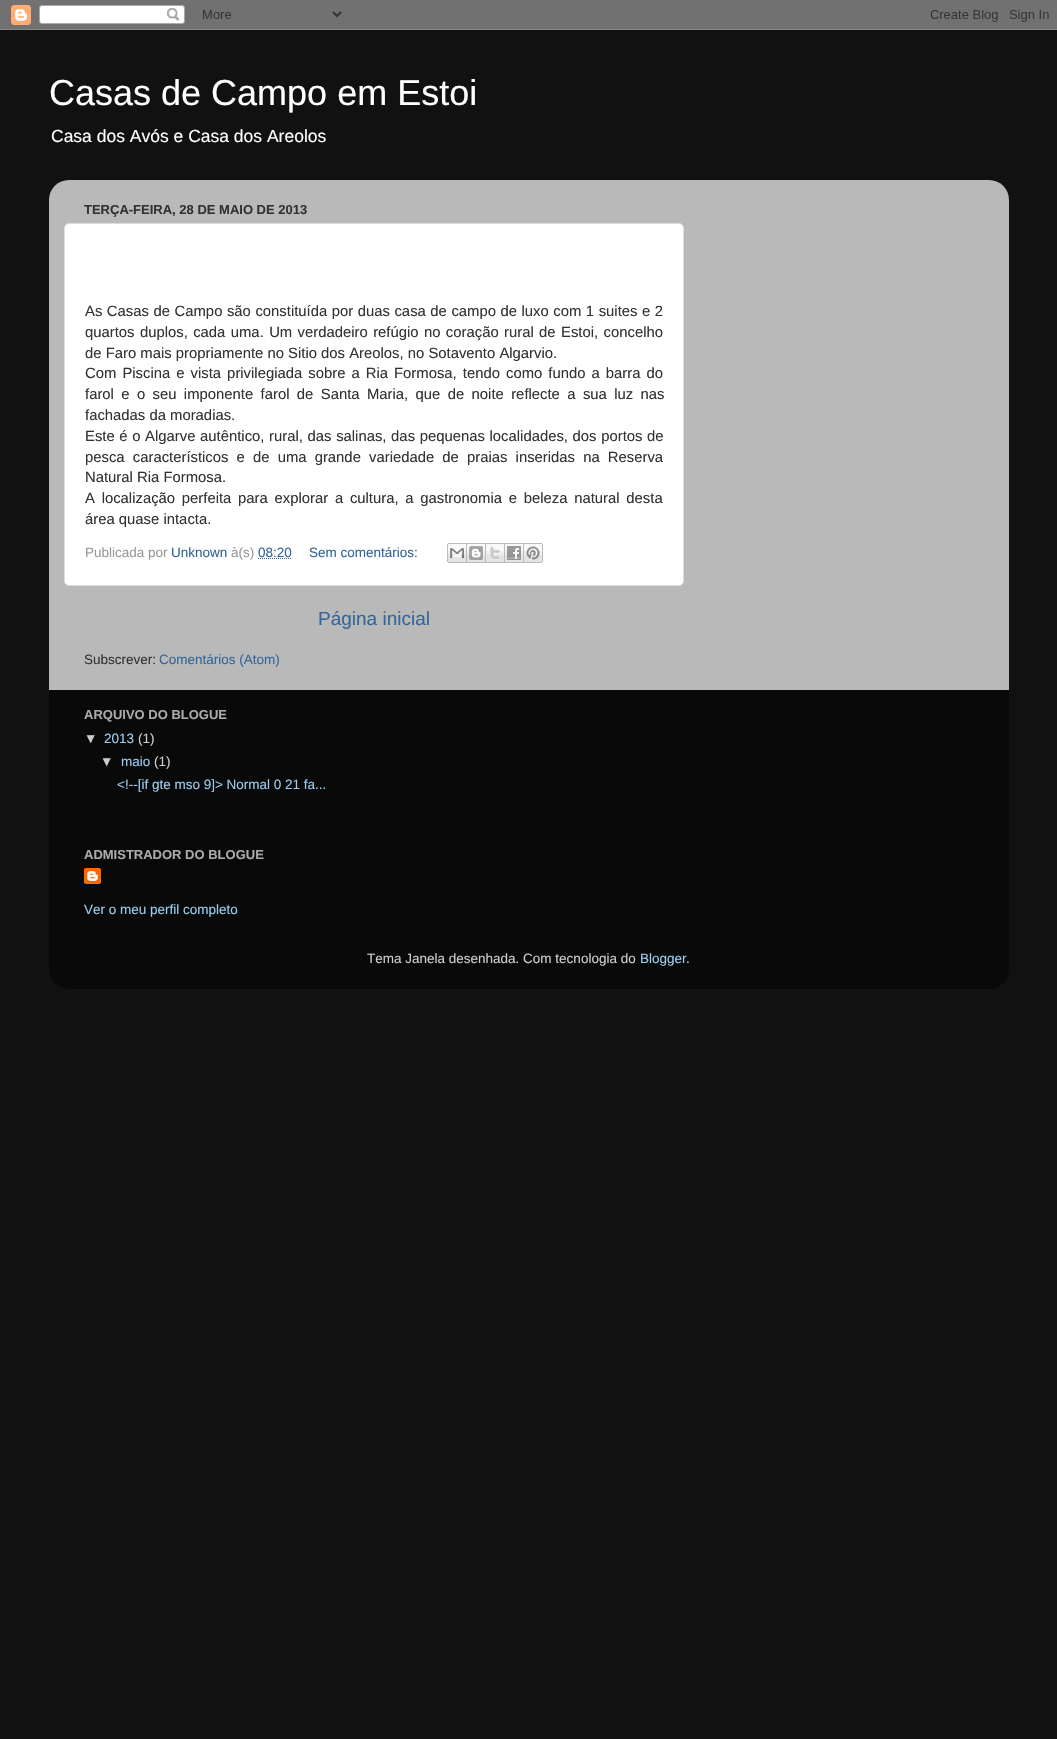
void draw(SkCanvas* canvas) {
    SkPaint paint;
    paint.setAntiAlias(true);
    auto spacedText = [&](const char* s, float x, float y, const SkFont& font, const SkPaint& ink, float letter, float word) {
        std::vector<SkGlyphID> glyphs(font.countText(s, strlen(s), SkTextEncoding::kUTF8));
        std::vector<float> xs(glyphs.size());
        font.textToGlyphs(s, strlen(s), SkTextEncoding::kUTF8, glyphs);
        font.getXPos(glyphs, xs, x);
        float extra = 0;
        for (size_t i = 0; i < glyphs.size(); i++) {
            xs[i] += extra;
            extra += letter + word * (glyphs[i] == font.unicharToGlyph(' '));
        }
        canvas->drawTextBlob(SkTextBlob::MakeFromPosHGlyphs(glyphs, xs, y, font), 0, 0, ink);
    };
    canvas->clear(0xFF111111);
    canvas->drawImageRect(SkImages::DeferredFromEncodedData(SkData::MakeFromFileName("img1.png")), SkRect::MakeXYWH(0, 0, 1057, 30), SkSamplingOptions());
    SkFont font1(fontMgr->matchFamilyStyle("Liberation Sans", SkFontStyle::Normal()), 36);
    font1.setSubpixel(true);
    paint.setColor(0xFFFFFFFF);
    canvas->drawString("Casas de Campo em Estoi", 49, 105, font1, paint);
    SkFont font2(fontMgr->matchFamilyStyle("Liberation Sans", SkFontStyle::Normal()), 17.5f);
    font2.setSubpixel(true);
    canvas->drawString("Casa dos Avós e Casa dos Areolos", 51, 142, font2, paint);
    canvas->drawImageRect(SkImages::DeferredFromEncodedData(SkData::MakeFromFileName("img2.png")), SkRect::MakeXYWH(49, 180, 960, 510), SkSamplingOptions());
    SkFont font3(fontMgr->matchFamilyStyle("Liberation Sans", SkFontStyle::Bold()), 13);
    font3.setSubpixel(true);
    paint.setColor(0xFF333333);
    canvas->drawString("TERÇA-FEIRA, 28 DE MAIO DE 2013", 84, 214, font3, paint);
    paint.setColor(0xFFFFFFFF);
    canvas->drawRoundRect(SkRect::MakeXYWH(64.5f, 223.5f, 619, 362), 4.5f, 4.5f, paint);
    paint.setStyle(SkPaint::kStroke_Style);
    paint.setStrokeWidth(1);
    paint.setColor(0xFFDDDDDD);
    canvas->drawRoundRect(SkRect::MakeXYWH(64.5f, 223.5f, 619, 362), 4.5f, 4.5f, paint);
    SkFont font4(fontMgr->matchFamilyStyle("Liberation Sans", SkFontStyle::Normal()), 14.85f);
    font4.setSubpixel(true);
    paint.setStyle(SkPaint::kFill_Style);
    paint.setColor(0xFF333333);
    spacedText("As Casas de Campo são constituída por duas casa de campo de luxo com 1 suites e 2", 85, 316, font4, paint, 0, 0.4f);
    spacedText("quartos duplos, cada uma. Um verdadeiro refúgio no coração rural de Estoi, concelho", 85, 337, font4, paint, 0, 1.25f);
    canvas->drawString("de Faro mais propriamente no Sitio dos Areolos, no Sotavento Algarvio.", 85, 358, font4, paint);
    spacedText("Com Piscina e vista privilegiada sobre a Ria Formosa, tendo como fundo a barra do", 85, 378, font4, paint, 0, 1.9f);
    spacedText("farol e o seu imponente farol de Santa Maria, que de noite reflecte a sua luz nas", 85, 399, font4, paint, 0, 3.25f);
    canvas->drawString("fachadas da moradias.", 85, 420, font4, paint);
    spacedText("Este é o Algarve autêntico, rural, das salinas, das pequenas localidades, dos portos de", 85, 441, font4, paint, 0, 0.5f);
    spacedText("pesca característicos e de uma grande variedade de praias inseridas na Reserva", 85, 462, font4, paint, 0, 4);
    canvas->drawString("Natural Ria Formosa.", 85, 482, font4, paint);
    spacedText("A localização perfeita para explorar a cultura, a gastronomia e beleza natural desta", 85, 503, font4, paint, 0, 2.6f);
    canvas->drawString("área quase intacta.", 85, 524, font4, paint);
    SkFont font5(fontMgr->matchFamilyStyle("Liberation Sans", SkFontStyle::Normal()), 13.5f);
    font5.setSubpixel(true);
    paint.setColor(0xFF999999);
    canvas->drawString("Publicada por", 85, 557, font5, paint);
    paint.setColor(0xFF336699);
    canvas->drawString("Unknown", 171, 557, font5, paint);
    paint.setColor(0xFF999999);
    canvas->drawString("à(s)", 231, 557, font5, paint);
    paint.setColor(0xFF336699);
    canvas->drawString("08:20", 258, 557, font5, paint);
    paint.setStyle(SkPaint::kStroke_Style);
    paint.setPathEffect(SkDashPathEffect::Make({{1, 1}}, 0));
    canvas->drawPath(SkPathBuilder().moveTo(258, 558.5f).lineTo(291.5f, 558.5f).detach(), paint);
    paint.setPathEffect(nullptr);
    paint.setStyle(SkPaint::kFill_Style);
    canvas->drawString("Sem comentários:", 309, 557, font5, paint);
    canvas->drawImageRect(SkImages::DeferredFromEncodedData(SkData::MakeFromFileName("img3.png")), SkRect::MakeXYWH(447, 543, 20, 20), SkSamplingOptions());
    canvas->drawImageRect(SkImages::DeferredFromEncodedData(SkData::MakeFromFileName("img4.png")), SkRect::MakeXYWH(467, 543, 19, 20), SkSamplingOptions());
    canvas->drawImageRect(SkImages::DeferredFromEncodedData(SkData::MakeFromFileName("img5.png")), SkRect::MakeXYWH(486, 543, 19, 20), SkSamplingOptions());
    canvas->drawImageRect(SkImages::DeferredFromEncodedData(SkData::MakeFromFileName("img6.png")), SkRect::MakeXYWH(505, 543, 19, 20), SkSamplingOptions());
    canvas->drawImageRect(SkImages::DeferredFromEncodedData(SkData::MakeFromFileName("img7.png")), SkRect::MakeXYWH(524, 543, 19, 20), SkSamplingOptions());
    SkFont font6(fontMgr->matchFamilyStyle("Liberation Sans", SkFontStyle::Normal()), 19);
    font6.setSubpixel(true);
    canvas->drawString("Página inicial", 318, 625, font6, paint);
    paint.setColor(0xFF333333);
    canvas->drawString("Subscrever:", 84, 664, font5, paint);
    paint.setColor(0xFF336699);
    canvas->drawString("Comentários (Atom)", 159, 664, font5, paint);
    canvas->drawImageRect(SkImages::DeferredFromEncodedData(SkData::MakeFromFileName("img8.png")), SkRect::MakeXYWH(49, 690, 960, 299), SkSamplingOptions());
    paint.setColor(0xFFAAAAAA);
    canvas->drawString("ARQUIVO DO BLOGUE", 84, 719, font3, paint);
    paint.setColor(0xFFCCCCCC);
    canvas->drawString("▼", 84, 743, font5, paint);
    paint.setColor(0xFF99CCEE);
    canvas->drawString("2013", 104, 743, font5, paint);
    paint.setColor(0xFFCCCCCC);
    canvas->drawString("(1)", 138, 743, font5, paint);
    canvas->drawString("▼", 100, 766, font5, paint);
    paint.setColor(0xFF99CCEE);
    canvas->drawString("maio", 121, 766, font5, paint);
    paint.setColor(0xFFCCCCCC);
    canvas->drawString("(1)", 154, 766, font5, paint);
    paint.setColor(0xFF99CCEE);
    canvas->drawString("<!--[if gte mso 9]> Normal 0 21 fa...", 117, 789, font5, paint);
    paint.setColor(0xFFAAAAAA);
    canvas->drawString("ADMISTRADOR DO BLOGUE", 84, 859, font3, paint);
    canvas->drawImageRect(SkImages::DeferredFromEncodedData(SkData::MakeFromFileName("img9.png")), SkRect::MakeXYWH(84, 868, 17, 16), SkSamplingOptions());
    paint.setColor(0xFF99CCEE);
    canvas->drawString("Ver o meu perfil completo", 84, 914, font5, paint);
    paint.setColor(0xFFCCCCCC);
    canvas->drawString("Tema Janela desenhada. Com tecnologia do", 367, 963, font5, paint);
    paint.setColor(0xFF99CCEE);
    canvas->drawString("Blogger", 640, 963, font5, paint);
    paint.setColor(0xFFCCCCCC);
    canvas->drawString(".", 686, 963, font5, paint);
}
